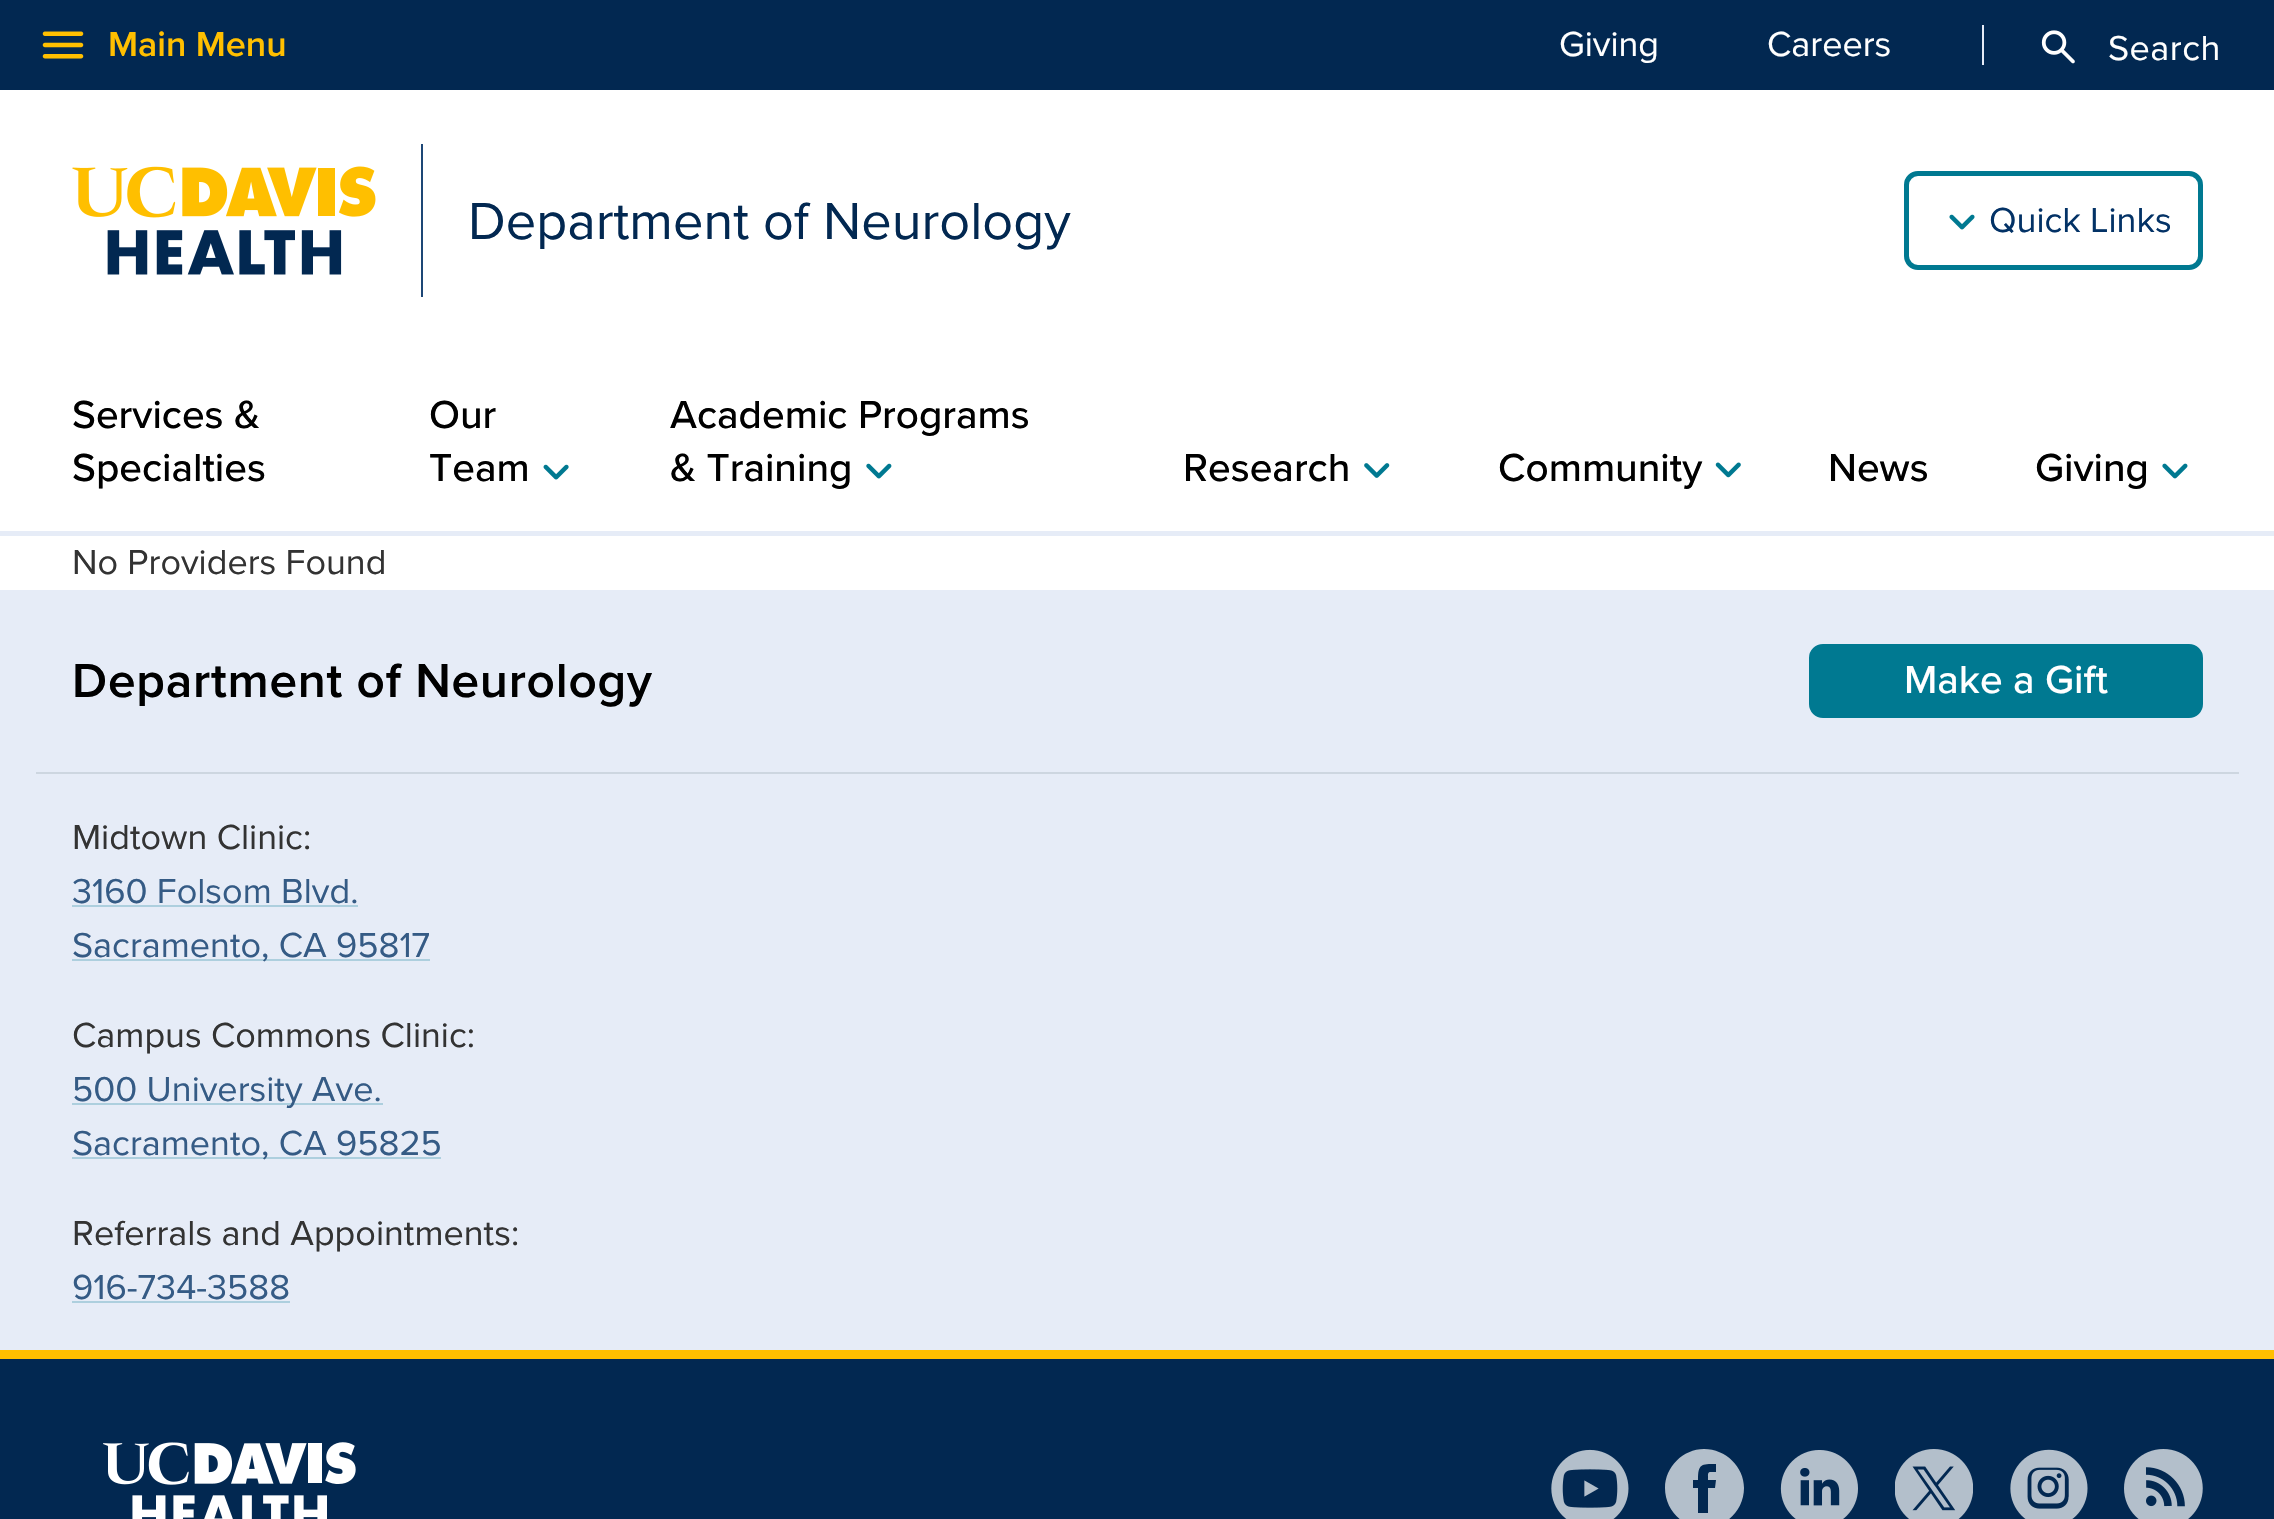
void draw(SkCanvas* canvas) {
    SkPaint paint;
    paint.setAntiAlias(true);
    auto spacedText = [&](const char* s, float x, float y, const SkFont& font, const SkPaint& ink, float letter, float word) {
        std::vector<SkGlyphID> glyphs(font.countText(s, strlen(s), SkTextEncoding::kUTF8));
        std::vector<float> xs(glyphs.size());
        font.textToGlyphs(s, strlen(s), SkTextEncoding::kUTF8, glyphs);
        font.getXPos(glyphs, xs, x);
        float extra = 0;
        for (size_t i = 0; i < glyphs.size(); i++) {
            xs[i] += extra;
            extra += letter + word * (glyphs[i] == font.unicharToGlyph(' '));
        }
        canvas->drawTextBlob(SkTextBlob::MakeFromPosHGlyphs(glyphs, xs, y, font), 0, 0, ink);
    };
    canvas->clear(0xFFFFFFFF);
    paint.setColor(0xFF022851);
    canvas->drawRect(SkRect::MakeXYWH(0, 0, 2274, 90), paint);
    canvas->drawImageRect(SkImages::DeferredFromEncodedData(SkData::MakeFromFileName("img1.png")), SkRect::MakeXYWH(42, 31, 42, 28), SkSamplingOptions());
    SkFont font1(fontMgr->matchFamilyStyle("Proxima Nova", SkFontStyle(600, SkFontStyle::kNormal_Width, SkFontStyle::kUpright_Slant)), 36);
    font1.setSubpixel(true);
    paint.setColor(0xFFFFBF00);
    canvas->drawString("Main Menu", 108, 56, font1, paint);
    SkFont font2(fontMgr->matchFamilyStyle("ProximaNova", SkFontStyle::Normal()), 36);
    font2.setSubpixel(true);
    paint.setColor(0xFFFFFFFF);
    canvas->drawString("Giving", 1559, 56, font2, paint);
    canvas->drawString("Careers", 1767, 56, font2, paint);
    paint.setColor(0xFFE6ECF7);
    canvas->drawRect(SkRect::MakeXYWH(1982, 25, 2, 40), paint);
    canvas->drawImageRect(SkImages::DeferredFromEncodedData(SkData::MakeFromFileName("img2.png")), SkRect::MakeXYWH(2041, 30, 34, 34), SkSamplingOptions());
    paint.setColor(0xFFFFFFFF);
    spacedText("Search", 2108, 60, font2, paint, 0.5f, 0);
    canvas->drawImageRect(SkImages::DeferredFromEncodedData(SkData::MakeFromFileName("img3.png")), SkRect::MakeXYWH(72, 166, 304, 109), SkSamplingOptions());
    paint.setColor(0xFF1D4776);
    canvas->drawRect(SkRect::MakeXYWH(421, 144, 2, 153), paint);
    SkFont font3(fontMgr->matchFamilyStyle("ProximaNova", SkFontStyle::Normal()), 54);
    font3.setSubpixel(true);
    paint.setColor(0xFF022851);
    canvas->drawString("Department of Neurology", 468, 239, font3, paint);
    paint.setStyle(SkPaint::kStroke_Style);
    paint.setStrokeWidth(5);
    paint.setColor(0xFF007991);
    canvas->drawRoundRect(SkRect::MakeXYWH(1906.5f, 173.5f, 294, 94), 11.5f, 11.5f, paint);
    canvas->drawImageRect(SkImages::DeferredFromEncodedData(SkData::MakeFromFileName("img4.png")), SkRect::MakeXYWH(1949, 214, 26, 16), SkSamplingOptions());
    paint.setStyle(SkPaint::kFill_Style);
    paint.setColor(0xFF033266);
    canvas->drawString("Quick Links", 1989, 232, font2, paint);
    paint.setColor(0xFFE6ECF7);
    canvas->drawRect(SkRect::MakeXYWH(0, 531, 2274, 5), paint);
    SkFont font4(fontMgr->matchFamilyStyle("Proxima Nova", SkFontStyle(500, SkFontStyle::kNormal_Width, SkFontStyle::kUpright_Slant)), 40.5f);
    font4.setSubpixel(true);
    paint.setColor(0xFF000000);
    canvas->drawString("Services &", 72, 428, font4, paint);
    canvas->drawString("Specialties", 72, 481, font4, paint);
    canvas->drawString("Our", 429, 428, font4, paint);
    canvas->drawString("Team", 429, 481, font4, paint);
    canvas->drawImageRect(SkImages::DeferredFromEncodedData(SkData::MakeFromFileName("img5.png")), SkRect::MakeXYWH(543, 464, 26, 16), SkSamplingOptions());
    canvas->drawString("Academic Programs", 670, 428, font4, paint);
    canvas->drawString("& Training", 670, 481, font4, paint);
    canvas->drawImageRect(SkImages::DeferredFromEncodedData(SkData::MakeFromFileName("img6.png")), SkRect::MakeXYWH(866, 463, 26, 16), SkSamplingOptions());
    canvas->drawString("Research", 1183, 481, font4, paint);
    canvas->drawImageRect(SkImages::DeferredFromEncodedData(SkData::MakeFromFileName("img7.png")), SkRect::MakeXYWH(1364, 463, 26, 15), SkSamplingOptions());
    canvas->drawString("Community", 1498, 481, font4, paint);
    canvas->drawImageRect(SkImages::DeferredFromEncodedData(SkData::MakeFromFileName("img8.png")), SkRect::MakeXYWH(1715, 462, 26, 16), SkSamplingOptions());
    canvas->drawString("News", 1828, 481, font4, paint);
    canvas->drawString("Giving", 2035, 481, font4, paint);
    canvas->drawImageRect(SkImages::DeferredFromEncodedData(SkData::MakeFromFileName("img9.png")), SkRect::MakeXYWH(2162, 463, 26, 16), SkSamplingOptions());
    paint.setColor(0xFF333333);
    canvas->drawString("No Providers Found", 72, 574, font2, paint);
    paint.setColor(0xFFE6ECF7);
    canvas->drawRect(SkRect::MakeXYWH(0, 590, 2274, 760), paint);
    SkFont font5(fontMgr->matchFamilyStyle("Proxima Nova", SkFontStyle(600, SkFontStyle::kNormal_Width, SkFontStyle::kUpright_Slant)), 49.5f);
    font5.setSubpixel(true);
    paint.setColor(0xFF000000);
    spacedText("Department of Neurology", 72, 697, font5, paint, 0.75f, 0);
    paint.setColor(0xFF007991);
    canvas->drawRoundRect(SkRect::MakeXYWH(1811.5f, 646.5f, 389, 69), 11.5f, 11.5f, paint);
    paint.setStyle(SkPaint::kStroke_Style);
    canvas->drawRoundRect(SkRect::MakeXYWH(1811.5f, 646.5f, 389, 69), 11.5f, 11.5f, paint);
    paint.setStyle(SkPaint::kFill_Style);
    paint.setColor(0xFFFFFFFF);
    canvas->drawString("Make a Gift", 1904, 693, font4, paint);
    paint.setColor(0xFFCDD6E0);
    canvas->drawRect(SkRect::MakeXYWH(36, 772, 2203, 2), paint);
    paint.setColor(0xFF333333);
    canvas->drawString("Midtown Clinic:", 72, 849, font2, paint);
    paint.setColor(0xFF355B85);
    canvas->drawString("3160 Folsom Blvd.", 72, 903, font2, paint);
    paint.setColor(0xFFADCFDE);
    canvas->drawRect(SkRect::MakeXYWH(72, 905, 286, 2), paint);
    canvas->drawRect(SkRect::MakeXYWH(72, 959, 358, 2), paint);
    paint.setColor(0xFF355B85);
    canvas->drawString("Sacramento, CA 95817", 72, 957, font2, paint);
    paint.setColor(0xFF333333);
    canvas->drawString("Campus Commons Clinic:", 72, 1047, font2, paint);
    paint.setColor(0xFFADCFDE);
    canvas->drawRect(SkRect::MakeXYWH(72, 1103, 311, 2), paint);
    paint.setColor(0xFF355B85);
    canvas->drawString("500 University Ave.", 72, 1101, font2, paint);
    paint.setColor(0xFFADCFDE);
    canvas->drawRect(SkRect::MakeXYWH(72, 1157, 369, 2), paint);
    paint.setColor(0xFF355B85);
    canvas->drawString("Sacramento, CA 95825", 72, 1155, font2, paint);
    paint.setColor(0xFF333333);
    canvas->drawString("Referrals and Appointments:", 72, 1245, font2, paint);
    paint.setColor(0xFF355B85);
    canvas->drawString("916-734-3588", 72, 1299, font2, paint);
    paint.setColor(0xFFADCFDE);
    canvas->drawRect(SkRect::MakeXYWH(72, 1301, 218, 2), paint);
    paint.setColor(0xFF022851);
    canvas->drawRect(SkRect::MakeXYWH(0, 1359, 2274, 160), paint);
    paint.setColor(0xFFFFBF00);
    canvas->drawRect(SkRect::MakeXYWH(0, 1350, 2274, 9), paint);
    canvas->drawImageRect(SkImages::DeferredFromEncodedData(SkData::MakeFromFileName("img10.png")), SkRect::MakeXYWH(103, 1442, 253, 77), SkSamplingOptions());
    canvas->drawImageRect(SkImages::DeferredFromEncodedData(SkData::MakeFromFileName("img11.png")), SkRect::MakeXYWH(1551, 1449, 78, 70), SkSamplingOptions());
    paint.setColor(0xFFB3BFCB);
    canvas->drawPath(SkPathBuilder(SkPathFillType::kEvenOdd).moveTo(1715, 1488).lineTo(1708, 1488).lineTo(1708, 1513).lineTo(1698, 1513).lineTo(1698, 1488).lineTo(1693, 1488).lineTo(1693, 1480).lineTo(1698, 1480).cubicTo(1698, 1464, 1701, 1464, 1716, 1464).lineTo(1716, 1472).cubicTo(1707, 1472, 1708, 1471, 1708, 1480).lineTo(1716, 1480).close().moveTo(1704, 1449).cubicTo(1683, 1449, 1665, 1467, 1665, 1488).cubicTo(1665, 1510, 1683, 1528, 1704, 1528).cubicTo(1726, 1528, 1744, 1510, 1744, 1488).cubicTo(1744, 1467, 1726, 1449, 1704, 1449).close().detach(), paint);
    canvas->drawImageRect(SkImages::DeferredFromEncodedData(SkData::MakeFromFileName("img12.png")), SkRect::MakeXYWH(1780, 1450, 78, 69), SkSamplingOptions());
    canvas->drawImageRect(SkImages::DeferredFromEncodedData(SkData::MakeFromFileName("img13.png")), SkRect::MakeXYWH(1895, 1449, 78, 70), SkSamplingOptions());
    canvas->drawImageRect(SkImages::DeferredFromEncodedData(SkData::MakeFromFileName("img14.png")), SkRect::MakeXYWH(2010, 1449, 78, 70), SkSamplingOptions());
    canvas->drawImageRect(SkImages::DeferredFromEncodedData(SkData::MakeFromFileName("img15.png")), SkRect::MakeXYWH(2124, 1449, 79, 70), SkSamplingOptions());
}
